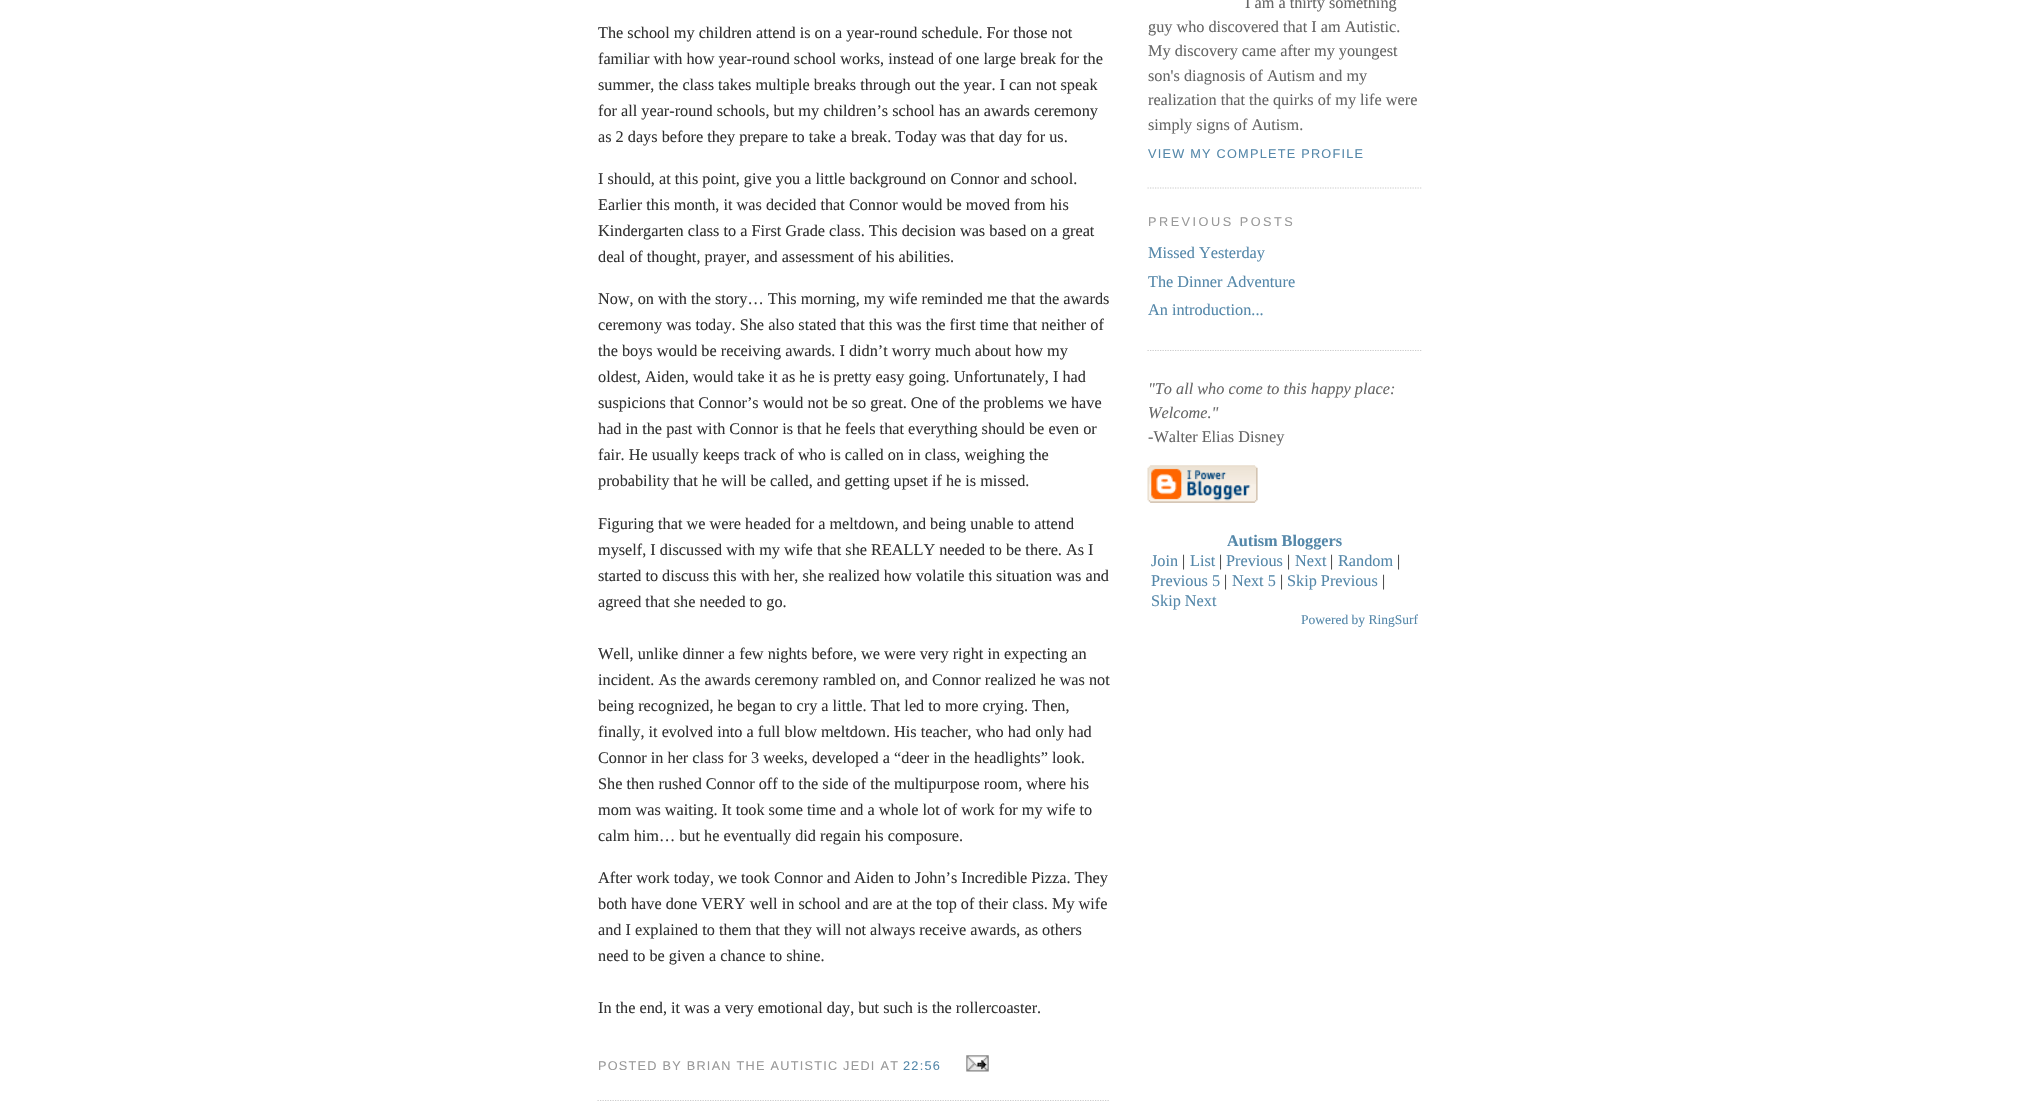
void draw(SkCanvas* canvas) {
    SkPaint paint;
    paint.setAntiAlias(true);
    auto spacedText = [&](const char* s, float x, float y, const SkFont& font, const SkPaint& ink, float letter, float word) {
        std::vector<SkGlyphID> glyphs(font.countText(s, strlen(s), SkTextEncoding::kUTF8));
        std::vector<float> xs(glyphs.size());
        font.textToGlyphs(s, strlen(s), SkTextEncoding::kUTF8, glyphs);
        font.getXPos(glyphs, xs, x);
        float extra = 0;
        for (size_t i = 0; i < glyphs.size(); i++) {
            xs[i] += extra;
            extra += letter + word * (glyphs[i] == font.unicharToGlyph(' '));
        }
        canvas->drawTextBlob(SkTextBlob::MakeFromPosHGlyphs(glyphs, xs, y, font), 0, 0, ink);
    };
    canvas->clear(0xFFFFFFFF);
    paint.setStyle(SkPaint::kStroke_Style);
    paint.setStrokeWidth(1.2f);
    paint.setColor(0xFFCCCCCC);
    paint.setPathEffect(SkDashPathEffect::Make({{1.25f, 1.25f}}, 0));
    canvas->drawPath(SkPathBuilder().moveTo(597.5f, 1100.5f).lineTo(1110, 1100.5f).detach(), paint);
    paint.setPathEffect(nullptr);
    SkFont font1(fontMgr->matchFamilyStyle("Liberation Serif", SkFontStyle::Normal()), 16.25f);
    font1.setSubpixel(true);
    paint.setStyle(SkPaint::kFill_Style);
    paint.setColor(0xFF333333);
    canvas->drawString("The school my children attend is on a year-round schedule. For those not", 598, 38, font1, paint);
    canvas->drawString("familiar with how year-round school works, instead of one large break for the", 598, 64, font1, paint);
    canvas->drawString("summer, the class takes multiple breaks through out the year. I can not speak", 598, 90, font1, paint);
    canvas->drawString("for all year-round schools, but my children’s school has an awards ceremony", 598, 116, font1, paint);
    canvas->drawString("as 2 days before they prepare to take a break. Today was that day for us.", 598, 142, font1, paint);
    canvas->drawString("I should, at this point, give you a little background on Connor and school.", 598, 184, font1, paint);
    canvas->drawString("Earlier this month, it was decided that Connor would be moved from his", 598, 210, font1, paint);
    canvas->drawString("Kindergarten class to a First Grade class. This decision was based on a great", 598, 236, font1, paint);
    canvas->drawString("deal of thought, prayer, and assessment of his abilities.", 598, 262, font1, paint);
    canvas->drawString("Now, on with the story… This morning, my wife reminded me that the awards", 598, 304, font1, paint);
    canvas->drawString("ceremony was today. She also stated that this was the first time that neither of", 598, 330, font1, paint);
    canvas->drawString("the boys would be receiving awards. I didn’t worry much about how my", 598, 356, font1, paint);
    canvas->drawString("oldest, Aiden, would take it as he is pretty easy going. Unfortunately, I had", 598, 382, font1, paint);
    canvas->drawString("suspicions that Connor’s would not be so great. One of the problems we have", 598, 408, font1, paint);
    canvas->drawString("had in the past with Connor is that he feels that everything should be even or", 598, 434, font1, paint);
    canvas->drawString("fair. He usually keeps track of who is called on in class, weighing the", 598, 460, font1, paint);
    canvas->drawString("probability that he will be called, and getting upset if he is missed.", 598, 486, font1, paint);
    canvas->drawString("Figuring that we were headed for a meltdown, and being unable to attend", 598, 529, font1, paint);
    canvas->drawString("myself, I discussed with my wife that she REALLY needed to be there. As I", 598, 555, font1, paint);
    canvas->drawString("started to discuss this with her, she realized how volatile this situation was and", 598, 581, font1, paint);
    canvas->drawString("agreed that she needed to go.", 598, 607, font1, paint);
    canvas->drawString("Well, unlike dinner a few nights before, we were very right in expecting an", 598, 659, font1, paint);
    canvas->drawString("incident. As the awards ceremony rambled on, and Connor realized he was not", 598, 685, font1, paint);
    canvas->drawString("being recognized, he began to cry a little. That led to more crying. Then,", 598, 711, font1, paint);
    canvas->drawString("finally, it evolved into a full blow meltdown. His teacher, who had only had", 598, 737, font1, paint);
    canvas->drawString("Connor in her class for 3 weeks, developed a “deer in the headlights” look.", 598, 763, font1, paint);
    canvas->drawString("She then rushed Connor off to the side of the multipurpose room, where his", 598, 789, font1, paint);
    canvas->drawString("mom was waiting. It took some time and a whole lot of work for my wife to", 598, 815, font1, paint);
    canvas->drawString("calm him… but he eventually did regain his composure.", 598, 841, font1, paint);
    canvas->drawString("After work today, we took Connor and Aiden to John’s Incredible Pizza. They", 598, 883, font1, paint);
    canvas->drawString("both have done VERY well in school and are at the top of their class. My wife", 598, 909, font1, paint);
    canvas->drawString("and I explained to them that they will not always receive awards, as others", 598, 935, font1, paint);
    canvas->drawString("need to be given a chance to shine.", 598, 961, font1, paint);
    canvas->drawString("In the end, it was a very emotional day, but such is the rollercoaster.", 598, 1013, font1, paint);
    SkFont font2(fontMgr->matchFamilyStyle("Liberation Sans", SkFontStyle::Normal()), 12.7f);
    font2.setSubpixel(true);
    paint.setColor(0xFF999999);
    spacedText("POSTED BY BRIAN THE AUTISTIC JEDI AT", 598, 1070, font2, paint, 1.25f, 0);
    paint.setColor(0xFF5588AA);
    spacedText("22:56", 903, 1070, font2, paint, 1.25f, 0);
    canvas->drawImageRect(SkImages::DeferredFromEncodedData(SkData::MakeFromFileName("img1.png")), SkRect::MakeXYWH(966, 1055, 23, 17), SkSamplingOptions());
    paint.setStyle(SkPaint::kStroke_Style);
    paint.setColor(0xFFCCCCCC);
    paint.setPathEffect(SkDashPathEffect::Make({{1.25f, 1.25f}}, 0));
    canvas->drawPath(SkPathBuilder().moveTo(1147.5f, 188).lineTo(1422.5f, 188).detach(), paint);
    paint.setPathEffect(nullptr);
    paint.setStyle(SkPaint::kFill_Style);
    paint.setColor(0xFF666666);
    canvas->drawString("I am a thirty something", 1245, 8, font1, paint);
    canvas->drawString("guy who discovered that I am Autistic.", 1148, 32, font1, paint);
    canvas->drawString("My discovery came after my youngest", 1148, 56, font1, paint);
    canvas->drawString("son's diagnosis of Autism and my", 1148, 81, font1, paint);
    canvas->drawString("realization that the quirks of my life were", 1148, 105, font1, paint);
    canvas->drawString("simply signs of Autism.", 1148, 130, font1, paint);
    paint.setColor(0xFF5588AA);
    spacedText("VIEW MY COMPLETE PROFILE", 1148, 158, font2, paint, 1.25f, 0);
    paint.setColor(0xFF999999);
    spacedText("PREVIOUS POSTS", 1148, 226, font2, paint, 2.5f, 0);
    paint.setStyle(SkPaint::kStroke_Style);
    paint.setColor(0xFFCCCCCC);
    paint.setPathEffect(SkDashPathEffect::Make({{1.25f, 1.25f}}, 0));
    canvas->drawPath(SkPathBuilder().moveTo(1147.5f, 350.5f).lineTo(1422.5f, 350.5f).detach(), paint);
    paint.setPathEffect(nullptr);
    paint.setStyle(SkPaint::kFill_Style);
    paint.setColor(0xFF5588AA);
    canvas->drawString("Missed Yesterday", 1148, 258, font1, paint);
    canvas->drawString("The Dinner Adventure", 1148, 287, font1, paint);
    canvas->drawString("An introduction...", 1148, 315, font1, paint);
    SkFont font3(fontMgr->matchFamilyStyle("Liberation Serif", SkFontStyle::Italic()), 16.25f);
    font3.setSubpixel(true);
    paint.setColor(0xFF666666);
    canvas->drawString("\"To all who come to this happy place:", 1148, 394, font3, paint);
    canvas->drawString("Welcome.\"", 1148, 418, font3, paint);
    canvas->drawString("-Walter Elias Disney", 1148, 442, font1, paint);
    canvas->drawImageRect(SkImages::DeferredFromEncodedData(SkData::MakeFromFileName("img2.png")), SkRect::MakeXYWH(1147, 465, 111, 38), SkSamplingOptions());
    SkFont font4(fontMgr->matchFamilyStyle("Liberation Serif", SkFontStyle::Bold()), 16.25f);
    font4.setSubpixel(true);
    paint.setColor(0xFF5588AA);
    canvas->drawString("Autism Bloggers", 1227, 546, font4, paint);
    canvas->drawString("Join", 1151, 566, font1, paint);
    paint.setColor(0xFF333333);
    canvas->drawString("|", 1182, 566, font1, paint);
    paint.setColor(0xFF5588AA);
    canvas->drawString("List", 1190, 566, font1, paint);
    paint.setColor(0xFF333333);
    canvas->drawString("|", 1219, 566, font1, paint);
    paint.setColor(0xFF5588AA);
    canvas->drawString("Previous", 1226, 566, font1, paint);
    paint.setColor(0xFF333333);
    canvas->drawString("|", 1287, 566, font1, paint);
    paint.setColor(0xFF5588AA);
    canvas->drawString("Next", 1295, 566, font1, paint);
    paint.setColor(0xFF333333);
    canvas->drawString("|", 1330, 566, font1, paint);
    paint.setColor(0xFF5588AA);
    canvas->drawString("Random", 1338, 566, font1, paint);
    paint.setColor(0xFF333333);
    canvas->drawString("|", 1397, 566, font1, paint);
    paint.setColor(0xFF5588AA);
    canvas->drawString("Previous 5", 1151, 586, font1, paint);
    paint.setColor(0xFF333333);
    canvas->drawString("|", 1224, 586, font1, paint);
    paint.setColor(0xFF5588AA);
    canvas->drawString("Next 5", 1232, 586, font1, paint);
    paint.setColor(0xFF333333);
    canvas->drawString("|", 1280, 586, font1, paint);
    paint.setColor(0xFF5588AA);
    canvas->drawString("Skip Previous", 1287, 586, font1, paint);
    paint.setColor(0xFF333333);
    canvas->drawString("|", 1382, 586, font1, paint);
    paint.setColor(0xFF5588AA);
    canvas->drawString("Skip Next", 1151, 606, font1, paint);
    SkFont font5(fontMgr->matchFamilyStyle("Liberation Serif", SkFontStyle::Normal()), 13.5f);
    font5.setSubpixel(true);
    canvas->drawString("Powered by RingSurf", 1301, 624, font5, paint);
}
